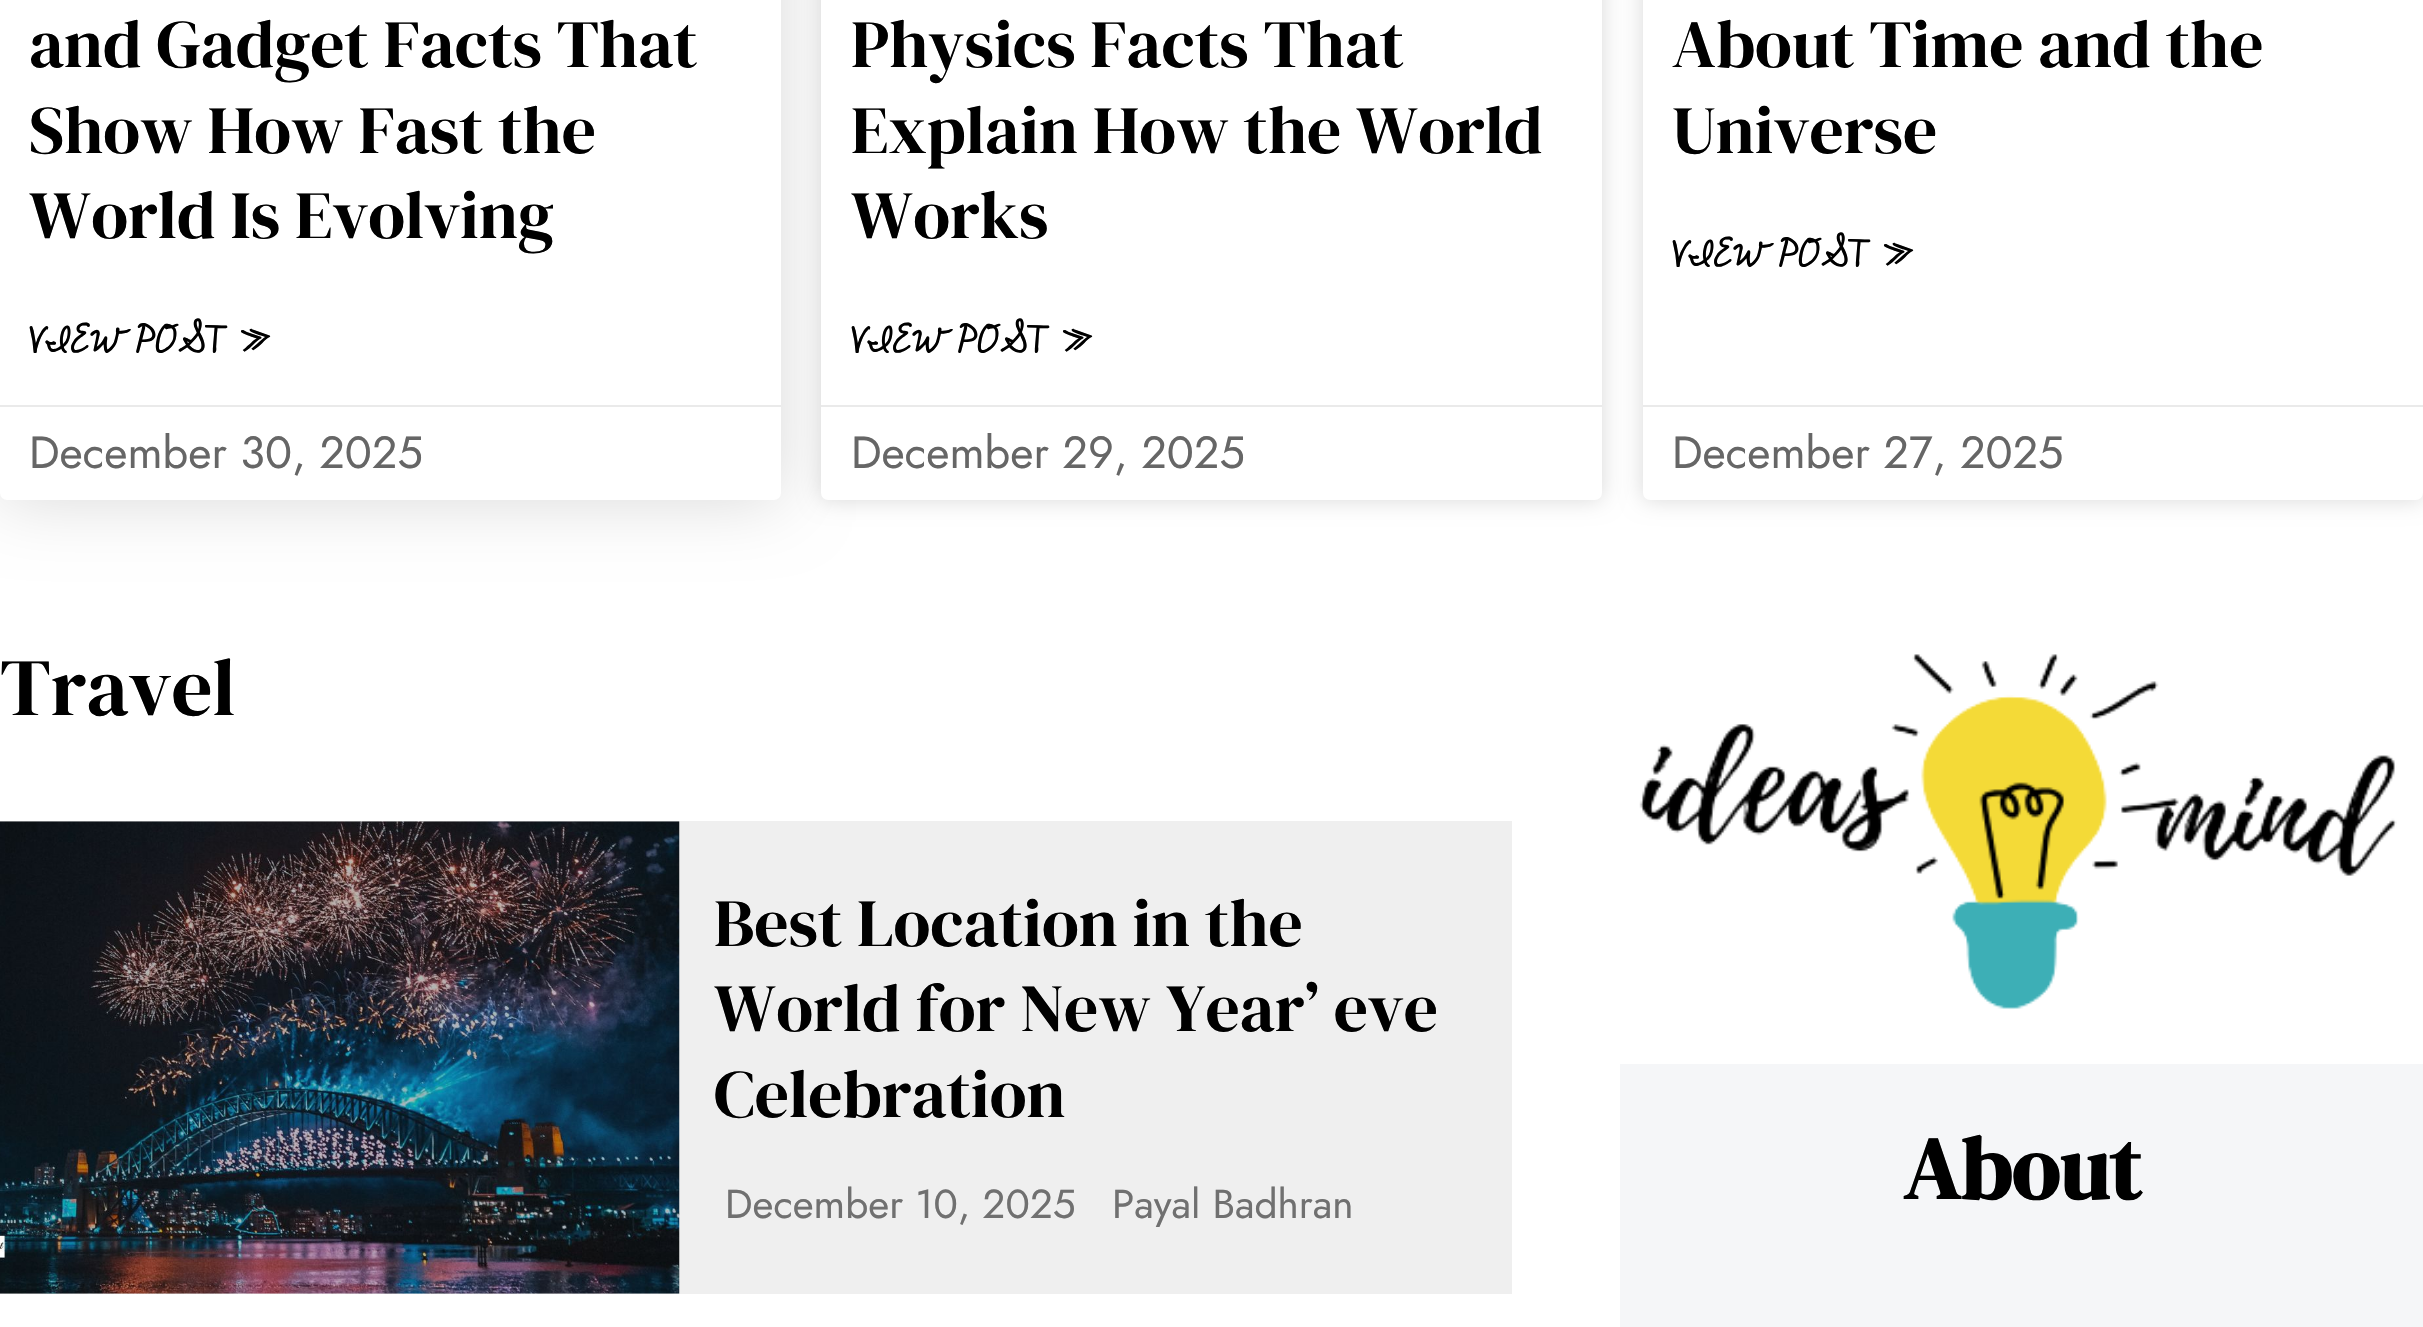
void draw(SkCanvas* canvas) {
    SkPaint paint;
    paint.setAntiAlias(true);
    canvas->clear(0xFFFFFFFF);
    paint.setColor(0x26000000);
    paint.setMaskFilter(SkMaskFilter::MakeBlur(kNormal_SkBlurStyle, 34));
    canvas->drawRoundRect(SkRect::MakeXYWH(0, -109, 781, 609), 7, 7, paint);
    paint.setMaskFilter(nullptr);
    paint.setColor(0xFFFFFFFF);
    canvas->drawRoundRect(SkRect::MakeXYWH(0, -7, 781, 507), 7, 7, paint);
    SkFont font1(fontMgr->matchFamilyStyle("DM Serif Display", SkFontStyle::Normal()), 67.5f);
    font1.setSubpixel(true);
    paint.setColor(0xFF000000);
    canvas->drawString("and Gadget Facts That", 29, 67, font1, paint);
    canvas->drawString("Show How Fast the", 29, 153, font1, paint);
    canvas->drawString("World Is Evolving", 29, 238, font1, paint);
    SkFont font2(fontMgr->matchFamilyStyle("Cedarville Cursive", SkFontStyle::Bold()), 36);
    font2.setSubpixel(true);
    canvas->drawString("VIEW POST »", 29, 353, font2, paint);
    paint.setColor(0xFFEAEAEA);
    canvas->drawRect(SkRect::MakeXYWH(0, 405, 781, 2), paint);
    SkFont font3(fontMgr->matchFamilyStyle("Jost", SkFontStyle::Normal()), 45);
    font3.setSubpixel(true);
    paint.setColor(0xFF666666);
    canvas->drawString("December 30, 2025", 29, 468, font3, paint);
    paint.setColor(0x26000000);
    paint.setMaskFilter(SkMaskFilter::MakeBlur(kNormal_SkBlurStyle, 11));
    canvas->drawRoundRect(SkRect::MakeXYWH(821, -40, 781, 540), 7, 7, paint);
    paint.setMaskFilter(nullptr);
    paint.setColor(0xFFFFFFFF);
    canvas->drawRoundRect(SkRect::MakeXYWH(821, -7, 781, 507), 7, 7, paint);
    paint.setColor(0xFF000000);
    canvas->drawString("Physics Facts That", 851, 67, font1, paint);
    canvas->drawString("Explain How the World", 851, 153, font1, paint);
    canvas->drawString("Works", 851, 238, font1, paint);
    canvas->drawString("VIEW POST »", 851, 353, font2, paint);
    paint.setColor(0xFFEAEAEA);
    canvas->drawRect(SkRect::MakeXYWH(821, 405, 781, 2), paint);
    paint.setColor(0xFF666666);
    canvas->drawString("December 29, 2025", 851, 468, font3, paint);
    paint.setColor(0x26000000);
    paint.setMaskFilter(SkMaskFilter::MakeBlur(kNormal_SkBlurStyle, 11));
    canvas->drawRoundRect(SkRect::MakeXYWH(1643, -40, 780, 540), 7, 7, paint);
    paint.setMaskFilter(nullptr);
    paint.setColor(0xFFFFFFFF);
    canvas->drawRoundRect(SkRect::MakeXYWH(1643, -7, 780, 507), 7, 7, paint);
    paint.setColor(0xFF000000);
    canvas->drawString("About Time and the", 1672, 67, font1, paint);
    canvas->drawString("Universe", 1672, 153, font1, paint);
    canvas->drawString("VIEW POST »", 1672, 267, font2, paint);
    paint.setColor(0xFFEAEAEA);
    canvas->drawRect(SkRect::MakeXYWH(1643, 405, 780, 2), paint);
    paint.setColor(0xFF666666);
    canvas->drawString("December 27, 2025", 1672, 468, font3, paint);
    SkFont font4(fontMgr->matchFamilyStyle("DM Serif Display", SkFontStyle::Normal()), 81);
    font4.setSubpixel(true);
    paint.setColor(0xFF000000);
    canvas->drawString("Travel", 0, 715, font4, paint);
    paint.setColor(0xFFEFEFEF);
    canvas->drawRect(SkRect::MakeXYWH(0, 821, 1512, 473), paint);
    canvas->drawImageRect(SkImages::DeferredFromEncodedData(SkData::MakeFromFileName("img1.png")), SkRect::MakeXYWH(0, 821, 680, 473), SkSamplingOptions());
    paint.setColor(0xFF000000);
    canvas->drawString("Best Location in the", 714, 946, font1, paint);
    canvas->drawString("World for New Year’ eve", 714, 1031, font1, paint);
    canvas->drawString("Celebration", 714, 1117, font1, paint);
    SkFont font5(fontMgr->matchFamilyStyle("Jost", SkFontStyle::Normal()), 40.5f);
    font5.setSubpixel(true);
    paint.setColor(0xFF707070);
    canvas->drawString("December 10, 2025", 725, 1218, font5, paint);
    canvas->drawString("Payal Badhran", 1112, 1218, font5, paint);
    canvas->drawImageRect(SkImages::DeferredFromEncodedData(SkData::MakeFromFileName("img2.png")), SkRect::MakeXYWH(1639, 654, 758, 356), SkSamplingOptions());
    paint.setColor(0xFFF5F6F8);
    canvas->drawRect(SkRect::MakeXYWH(1620, 1064, 803, 263), paint);
    SkFont font6(fontMgr->matchFamilyStyle("DM Serif Display", SkFontStyle::Bold()), 88);
    font6.setSubpixel(true);
    paint.setColor(0xFF000000);
    canvas->drawString("About", 1903, 1199, font6, paint);
}
